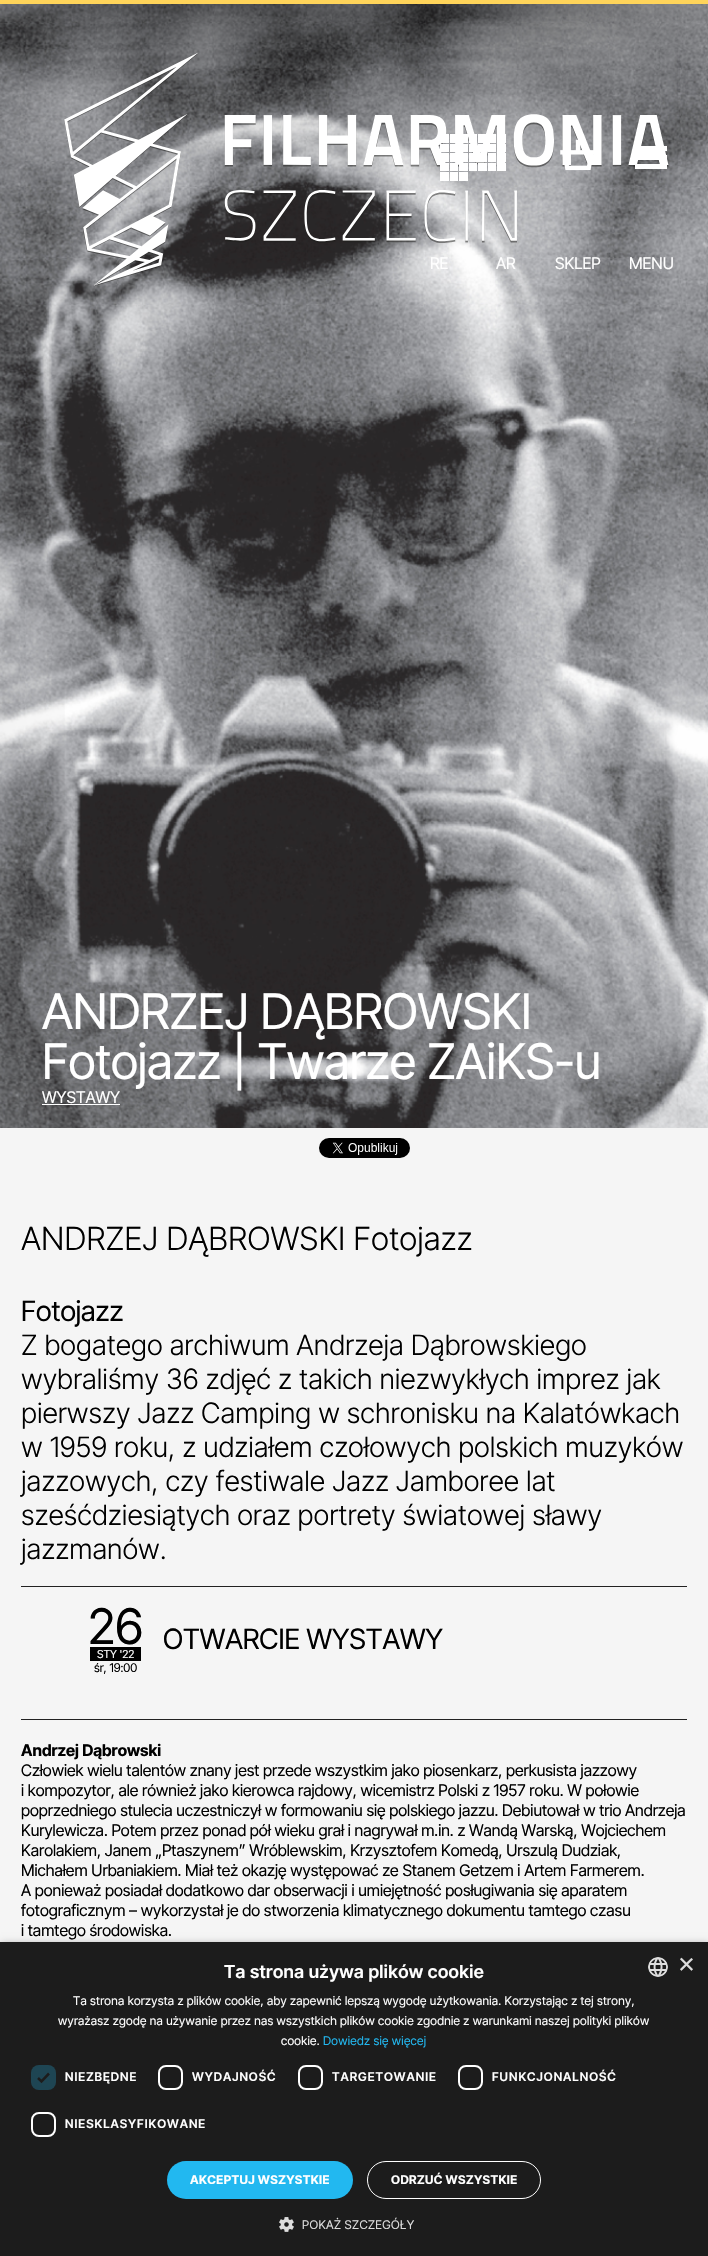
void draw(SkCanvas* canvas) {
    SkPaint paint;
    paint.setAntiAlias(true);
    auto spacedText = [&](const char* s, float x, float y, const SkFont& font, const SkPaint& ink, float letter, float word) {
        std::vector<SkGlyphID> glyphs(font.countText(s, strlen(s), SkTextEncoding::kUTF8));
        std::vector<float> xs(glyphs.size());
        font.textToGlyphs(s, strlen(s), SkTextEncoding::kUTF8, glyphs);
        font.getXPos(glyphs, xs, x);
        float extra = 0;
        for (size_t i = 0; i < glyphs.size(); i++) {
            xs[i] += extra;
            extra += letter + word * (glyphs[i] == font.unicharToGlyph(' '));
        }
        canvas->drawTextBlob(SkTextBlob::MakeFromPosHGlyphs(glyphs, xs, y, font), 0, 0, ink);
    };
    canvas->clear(0xFFF5F5F5);
    canvas->drawImageRect(SkImages::DeferredFromEncodedData(SkData::MakeFromFileName("img4.png")), SkRect::MakeXYWH(0, 4, 708, 1124), SkSamplingOptions());
    paint.setColor(0xFF000000);
    paint.setMaskFilter(SkMaskFilter::MakeBlur(kNormal_SkBlurStyle, 100));
    canvas->drawRect(SkRect::MakeXYWH(0, -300, 708, 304), paint);
    paint.setMaskFilter(nullptr);
    paint.setColor(0xFFFFD45A);
    canvas->drawRect(SkRect::MakeXYWH(0, 0, 708, 4), paint);
    canvas->drawImageRect(SkImages::DeferredFromEncodedData(SkData::MakeFromFileName("img1.png")), SkRect::MakeXYWH(64, 52, 605, 235), SkSamplingOptions());
    canvas->drawImageRect(SkImages::DeferredFromEncodedData(SkData::MakeFromFileName("img2.png")), SkRect::MakeXYWH(440, 134, 66, 47), SkSamplingOptions());
    SkFont font1(fontMgr->matchFamilyStyle("Inter Tight", SkFontStyle::Normal()), 16);
    font1.setSubpixel(true);
    paint.setColor(0xFFFFFFFF);
    canvas->drawString("RE", 430, 269, font1, paint);
    canvas->drawString("AR", 496, 269, font1, paint);
    canvas->drawImageRect(SkImages::DeferredFromEncodedData(SkData::MakeFromFileName("img3.png")), SkRect::MakeXYWH(560, 139, 34, 32), SkSamplingOptions());
    canvas->drawString("SKLEP", 555, 269, font1, paint);
    canvas->drawRect(SkRect::MakeXYWH(635, 146, 32, 5), paint);
    canvas->drawRect(SkRect::MakeXYWH(635, 155, 32, 5), paint);
    canvas->drawRect(SkRect::MakeXYWH(635, 164, 32, 5), paint);
    canvas->drawString("MENU", 629, 269, font1, paint);
    SkFont font2(fontMgr->matchFamilyStyle("Inter Tight", SkFontStyle::Normal()), 49);
    font2.setSubpixel(true);
    canvas->drawString("ANDRZEJ DĄBROWSKI", 42, 1029, font2, paint);
    canvas->drawString("Fotojazz | Twarze ZAiKS-u", 42, 1079, font2, paint);
    canvas->drawString("WYSTAWY", 42, 1103, font1, paint);
    canvas->drawRect(SkRect::MakeXYWH(42, 1104, 78, 1), paint);
    canvas->drawImageRect(SkImages::DeferredFromEncodedData(SkData::MakeFromFileName("img5.png")), SkRect::MakeXYWH(319, 1138, 91, 20), SkSamplingOptions());
    SkFont font3(fontMgr->matchFamilyStyle("Inter Tight", SkFontStyle(300, SkFontStyle::kNormal_Width, SkFontStyle::kUpright_Slant)), 32);
    font3.setSubpixel(true);
    paint.setColor(0xFF000000);
    canvas->drawString("ANDRZEJ DĄBROWSKI Fotojazz", 21, 1250, font3, paint);
    SkFont font4(fontMgr->matchFamilyStyle("Inter Tight", SkFontStyle::Normal()), 28);
    font4.setSubpixel(true);
    canvas->drawString("Fotojazz", 21, 1321, font4, paint);
    SkFont font5(fontMgr->matchFamilyStyle("Inter Tight", SkFontStyle(300, SkFontStyle::kNormal_Width, SkFontStyle::kUpright_Slant)), 28);
    font5.setSubpixel(true);
    canvas->drawString("Z bogatego archiwum Andrzeja Dąbrowskiego", 21, 1355, font5, paint);
    canvas->drawString("wybraliśmy 36 zdjęć z takich niezwykłych imprez jak", 21, 1389, font5, paint);
    canvas->drawString("pierwszy Jazz Camping w schronisku na Kalatówkach", 21, 1423, font5, paint);
    canvas->drawString("w 1959 roku, z udziałem czołowych polskich muzyków", 21, 1457, font5, paint);
    canvas->drawString("jazzowych, czy festiwale Jazz Jamboree lat", 21, 1491, font5, paint);
    canvas->drawString("sześćdziesiątych oraz portrety światowej sławy", 21, 1525, font5, paint);
    canvas->drawString("jazzmanów.", 21, 1559, font5, paint);
    paint.setColor(0xFF222222);
    canvas->drawRect(SkRect::MakeXYWH(21, 1586, 666, 1), paint);
    canvas->drawRect(SkRect::MakeXYWH(21, 1719, 666, 1), paint);
    paint.setColor(0xFF000000);
    canvas->drawString("26", 88, 1644, font2, paint);
    canvas->drawRect(SkRect::MakeXYWH(90, 1647, 51, 14), paint);
    SkFont font6(fontMgr->matchFamilyStyle("Inter Tight", SkFontStyle::Normal()), 11);
    font6.setSubpixel(true);
    paint.setColor(0xFFFFFFFF);
    canvas->drawString("STY '22", 97, 1658, font6, paint);
    SkFont font7(fontMgr->matchFamilyStyle("Inter Tight", SkFontStyle::Normal()), 12);
    font7.setSubpixel(true);
    paint.setColor(0xFF000000);
    canvas->drawString("śr, 19:00", 94, 1672, font7, paint);
    canvas->drawString("OTWARCIE WYSTAWY", 163, 1649, font4, paint);
    SkFont font8(fontMgr->matchFamilyStyle("Inter Tight", SkFontStyle::Bold()), 16);
    font8.setSubpixel(true);
    canvas->drawString("Andrzej Dąbrowski", 21, 1756, font8, paint);
    canvas->drawString("Człowiek wielu talentów znany jest przede wszystkim jako piosenkarz, perkusista jazzowy", 21, 1776, font1, paint);
    canvas->drawString("i kompozytor, ale również jako kierowca rajdowy, wicemistrz Polski z 1957 roku. W połowie", 21, 1796, font1, paint);
    canvas->drawString("poprzedniego stulecia uczestniczył w formowaniu się polskiego jazzu. Debiutował w trio Andrzeja", 21, 1816, font1, paint);
    canvas->drawString("Kurylewicza. Potem przez ponad pół wieku grał i nagrywał m.in. z Wandą Warską, Wojciechem", 21, 1836, font1, paint);
    canvas->drawString("Karolakiem, Janem „Ptaszynem” Wróblewskim, Krzysztofem Komedą, Urszulą Dudziak,", 21, 1856, font1, paint);
    canvas->drawString("Michałem Urbaniakiem. Miał też okazję występować ze Stanem Getzem i Artem Farmerem.", 21, 1876, font1, paint);
    canvas->drawString("A ponieważ posiadał dodatkowo dar obserwacji i umiejętność posługiwania się aparatem", 21, 1896, font1, paint);
    canvas->drawString("fotograficznym – wykorzystał je do stworzenia klimatycznego dokumentu tamtego czasu", 21, 1916, font1, paint);
    canvas->drawString("i tamtego środowiska.", 21, 1936, font1, paint);
    paint.setColor(0x59000000);
    paint.setMaskFilter(SkMaskFilter::MakeBlur(kNormal_SkBlurStyle, 4));
    canvas->drawRect(SkRect::MakeXYWH(1, 1944, 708, 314), paint);
    paint.setMaskFilter(nullptr);
    paint.setColor(0xFF1C1C1C);
    canvas->drawRect(SkRect::MakeXYWH(0, 1942, 708, 314), paint);
    SkFont font9(fontMgr->matchFamilyStyle("Inter Tight", SkFontStyle(600, SkFontStyle::kNormal_Width, SkFontStyle::kUpright_Slant)), 18);
    font9.setSubpixel(true);
    paint.setColor(0xFFFFFFFF);
    spacedText("Ta strona używa plików cookie", 224, 1978, font9, paint, 0.4f, 0);
    canvas->drawImageRect(SkImages::DeferredFromEncodedData(SkData::MakeFromFileName("img6.png")), SkRect::MakeXYWH(648, 1957, 20, 20), SkSamplingOptions());
    SkFont font10(fontMgr->matchFamilyStyle("Liberation Sans", SkFontStyle::Normal()), 29);
    font10.setSubpixel(true);
    paint.setColor(0xFFDDDDDD);
    canvas->drawString("×", 678, 1974, font10, paint);
    paint.setColor(0xFFFFFFFF);
    spacedText("Ta strona korzysta z plików cookie, aby zapewnić lepszą wygodę użytkowania. Korzystając z tej strony,", 73, 2005, font7, paint, 0.3f, 0);
    spacedText("wyrażasz zgodę na używanie przez nas wszystkich plików cookie zgodnie z warunkami naszej polityki plików", 58, 2025, font7, paint, 0.3f, 0);
    spacedText("cookie.", 281, 2045, font7, paint, 0.3f, 0);
    paint.setColor(0xFF22B8F0);
    spacedText("Dowiedz się więcej", 323, 2045, font7, paint, 0.3f, 0);
    paint.setColor(0xFF1E4553);
    canvas->drawRoundRect(SkRect::MakeXYWH(31, 2065, 25, 25), 8, 8, paint);
    paint.setStyle(SkPaint::kStroke_Style);
    paint.setStrokeWidth(2.6f);
    paint.setColor(0xFF1C1C1C);
    canvas->drawPath(SkPathBuilder().moveTo(38, 2078).lineTo(41.5f, 2081.5f).lineTo(49, 2073.5f).detach(), paint);
    SkFont font11(fontMgr->matchFamilyStyle("Inter Tight", SkFontStyle(600, SkFontStyle::kNormal_Width, SkFontStyle::kUpright_Slant)), 12);
    font11.setSubpixel(true);
    paint.setStyle(SkPaint::kFill_Style);
    paint.setColor(0xFFFFFFFF);
    spacedText("NIEZBĘDNE", 65, 2081, font11, paint, 1, 0);
    paint.setStyle(SkPaint::kStroke_Style);
    paint.setStrokeWidth(2);
    canvas->drawRoundRect(SkRect::MakeXYWH(159, 2066, 23, 23), 7, 7, paint);
    paint.setStyle(SkPaint::kFill_Style);
    spacedText("WYDAJNOŚĆ", 192, 2081, font11, paint, 1, 0);
    paint.setStyle(SkPaint::kStroke_Style);
    canvas->drawRoundRect(SkRect::MakeXYWH(299, 2066, 23, 23), 7, 7, paint);
    paint.setStyle(SkPaint::kFill_Style);
    spacedText("TARGETOWANIE", 332, 2081, font11, paint, 1, 0);
    paint.setStyle(SkPaint::kStroke_Style);
    canvas->drawRoundRect(SkRect::MakeXYWH(459, 2066, 23, 23), 7, 7, paint);
    paint.setStyle(SkPaint::kFill_Style);
    spacedText("FUNKCJONALNOŚĆ", 492, 2081, font11, paint, 1, 0);
    paint.setStyle(SkPaint::kStroke_Style);
    canvas->drawRoundRect(SkRect::MakeXYWH(32, 2113, 23, 23), 7, 7, paint);
    paint.setStyle(SkPaint::kFill_Style);
    spacedText("NIESKLASYFIKOWANE", 65, 2128, font11, paint, 1, 0);
    paint.setColor(0xFF22B8F0);
    canvas->drawRoundRect(SkRect::MakeXYWH(167, 2161, 186, 38), 19, 19, paint);
    SkFont font12(fontMgr->matchFamilyStyle("Inter Tight", SkFontStyle::Bold()), 12);
    font12.setSubpixel(true);
    paint.setColor(0xFFFFFFFF);
    spacedText("AKCEPTUJ WSZYSTKIE", 190, 2184, font12, paint, 0.4f, 0);
    paint.setStyle(SkPaint::kStroke_Style);
    paint.setStrokeWidth(1);
    canvas->drawRoundRect(SkRect::MakeXYWH(367.5f, 2161.5f, 173, 37), 18.5f, 18.5f, paint);
    paint.setStyle(SkPaint::kFill_Style);
    spacedText("ODRZUĆ WSZYSTKIE", 391, 2184, font12, paint, 0.4f, 0);
    canvas->drawImageRect(SkImages::DeferredFromEncodedData(SkData::MakeFromFileName("img7.png")), SkRect::MakeXYWH(279, 2217, 15, 15), SkSamplingOptions());
    paint.setColor(0xFFDDDDDD);
    spacedText("POKAŻ SZCZEGÓŁY", 302, 2229, font7, paint, 0.4f, 0);
}
